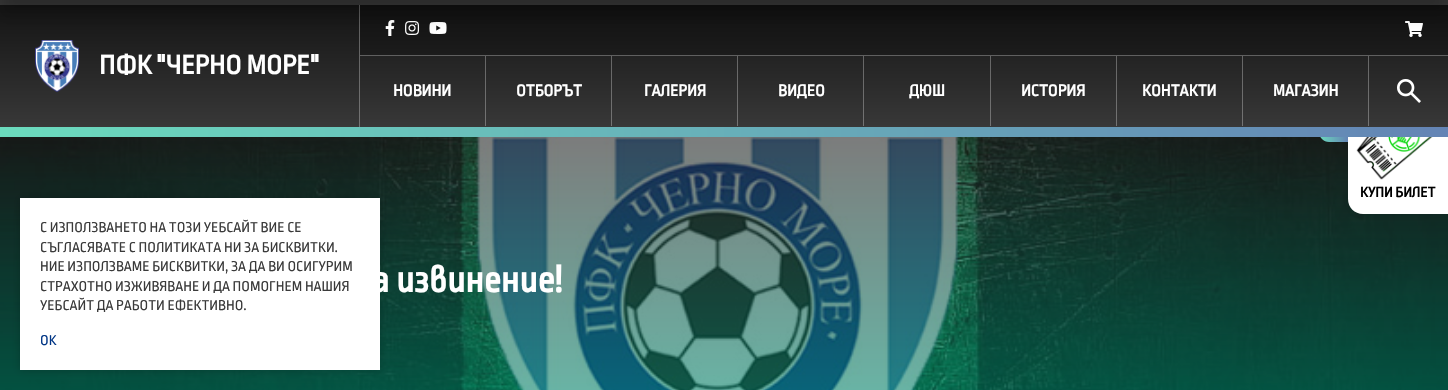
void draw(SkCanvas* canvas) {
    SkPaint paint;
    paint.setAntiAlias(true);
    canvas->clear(0xFFFFFFFF);
    {
        const SkColor colors[] = {0xFF141414, 0xFF383838};
        const float stops[] = {0, 1};
        const SkPoint ends[] = {{724, -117}, {724, 5}};
        paint.setShader(SkGradientShader::MakeLinear(ends, colors, stops, 2, SkTileMode::kClamp));
        paint.setAlpha(255);
    }
    canvas->drawRect(SkRect::MakeXYWH(0, 0, 1448, 5), paint);
    {
        const SkColor colors[] = {0xFF242424, 0xFF008E72};
        const float stops[] = {0, 1};
        const SkPoint ends[] = {{724, 137}, {724, 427}};
        paint.setShader(SkGradientShader::MakeLinear(ends, colors, stops, 2, SkTileMode::kClamp));
        paint.setAlpha(255);
    }
    canvas->drawRect(SkRect::MakeXYWH(0, 137, 1448, 253), paint);
    canvas->drawImageRect(SkImages::DeferredFromEncodedData(SkData::MakeFromFileName("img7.png")), SkRect::MakeXYWH(0, 137, 1448, 253), SkSamplingOptions());
    paint.setShader(nullptr);
    paint.setColor(0x1A000000);
    paint.setMaskFilter(SkMaskFilter::MakeBlur(kNormal_SkBlurStyle, 5));
    canvas->drawRoundRect(SkRect::MakeXYWH(1348, 78, 100, 136), 15, 15, paint);
    paint.setMaskFilter(nullptr);
    paint.setColor(0xFFFFFFFF);
    canvas->drawPath(SkPathBuilder().moveTo(1363, 78).lineTo(1448, 78).lineTo(1448, 214).lineTo(1363, 214).cubicTo(1354.5f, 214, 1348, 207.5f, 1348, 199).lineTo(1348, 93).cubicTo(1348, 84.5f, 1354.5f, 78, 1363, 78).close().detach(), paint);
    {
        const SkColor colors[] = {0xFF6BDBBD, 0xFF6484B5};
        const float stops[] = {0, 1};
        const SkPoint ends[] = {{1319, 120}, {1348, 120}};
        paint.setShader(SkGradientShader::MakeLinear(ends, colors, stops, 2, SkTileMode::kClamp));
        paint.setAlpha(255);
    }
    canvas->drawPath(SkPathBuilder().moveTo(1329, 98).lineTo(1348, 98).lineTo(1348, 142).lineTo(1329, 142).cubicTo(1323.5f, 142, 1319, 137.5f, 1319, 132).lineTo(1319, 108).cubicTo(1319, 102.5f, 1323.5f, 98, 1329, 98).close().detach(), paint);
    {
        const SkColor colors[] = {0xFF141414, 0xFF383838};
        const float stops[] = {0, 1};
        const SkPoint ends[] = {{724, 5}, {724, 127}};
        paint.setShader(SkGradientShader::MakeLinear(ends, colors, stops, 2, SkTileMode::kClamp));
        paint.setAlpha(255);
    }
    canvas->drawRect(SkRect::MakeXYWH(0, 5, 1448, 122), paint);
    {
        const SkColor colors[] = {0xFF101010, 0xFF2D2D2D};
        const float stops[] = {0, 1};
        const SkPoint ends[] = {{724, 5}, {724, 127}};
        paint.setShader(SkGradientShader::MakeLinear(ends, colors, stops, 2, SkTileMode::kClamp));
        paint.setAlpha(255);
    }
    canvas->drawRect(SkRect::MakeXYWH(360, 5, 1088, 50), paint);
    {
        const SkColor colors[] = {0xFF5B5B5B, 0xFF747474};
        const float stops[] = {0, 1};
        const SkPoint ends[] = {{724, 5}, {724, 127}};
        paint.setShader(SkGradientShader::MakeLinear(ends, colors, stops, 2, SkTileMode::kClamp));
        paint.setAlpha(255);
    }
    canvas->drawRect(SkRect::MakeXYWH(359, 5, 1, 122), paint);
    canvas->drawImageRect(SkImages::DeferredFromEncodedData(SkData::MakeFromFileName("img2.png")), SkRect::MakeXYWH(385, 20, 10, 16), SkSamplingOptions());
    canvas->drawImageRect(SkImages::DeferredFromEncodedData(SkData::MakeFromFileName("img3.png")), SkRect::MakeXYWH(405, 21, 15, 14), SkSamplingOptions());
    canvas->drawImageRect(SkImages::DeferredFromEncodedData(SkData::MakeFromFileName("img4.png")), SkRect::MakeXYWH(429, 22, 18, 12), SkSamplingOptions());
    canvas->drawImageRect(SkImages::DeferredFromEncodedData(SkData::MakeFromFileName("img5.png")), SkRect::MakeXYWH(1405, 21, 18, 16), SkSamplingOptions());
    paint.setShader(nullptr);
    paint.setColor(0x33000000);
    paint.setMaskFilter(SkMaskFilter::MakeBlur(kNormal_SkBlurStyle, 7.5f));
    canvas->drawRect(SkRect::MakeXYWH(0, -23, 1448, 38), paint);
    paint.setMaskFilter(nullptr);
    {
        const SkColor colors[] = {0xFF5B5B5B, 0xFF747474};
        const float stops[] = {0, 1};
        const SkPoint ends[] = {{724, 5}, {724, 127}};
        paint.setShader(SkGradientShader::MakeLinear(ends, colors, stops, 2, SkTileMode::kClamp));
        paint.setAlpha(255);
    }
    canvas->drawRect(SkRect::MakeXYWH(1242, 56, 1, 70), paint);
    canvas->drawRect(SkRect::MakeXYWH(1116, 56, 1, 70), paint);
    canvas->drawRect(SkRect::MakeXYWH(990, 56, 1, 70), paint);
    canvas->drawRect(SkRect::MakeXYWH(863, 56, 1, 70), paint);
    canvas->drawRect(SkRect::MakeXYWH(737, 56, 1, 70), paint);
    canvas->drawRect(SkRect::MakeXYWH(611, 56, 1, 70), paint);
    canvas->drawRect(SkRect::MakeXYWH(485, 56, 1, 70), paint);
    canvas->drawImageRect(SkImages::DeferredFromEncodedData(SkData::MakeFromFileName("img1.png")), SkRect::MakeXYWH(35, 40, 44, 52), SkSamplingOptions());
    SkFont font1(fontMgr->matchFamilyStyle("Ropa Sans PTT", SkFontStyle::Bold()), 28);
    font1.setSubpixel(true);
    paint.setShader(nullptr);
    paint.setColor(0xFFFFFFFF);
    canvas->drawString("ПФК \"ЧЕРНО МОРЕ\"", 99, 74, font1, paint);
    paint.setColor(0xFF606060);
    canvas->drawRect(SkRect::MakeXYWH(360, 55, 1088, 1), paint);
    SkFont font2(fontMgr->matchFamilyStyle("Ropa Sans PTT", SkFontStyle::Bold()), 17);
    font2.setSubpixel(true);
    paint.setColor(0xFFFFFFFF);
    canvas->drawString("НОВИНИ", 393, 96, font2, paint);
    canvas->drawString("ОТБОРЪТ", 516, 96, font2, paint);
    canvas->drawString("ГАЛЕРИЯ", 644, 96, font2, paint);
    canvas->drawString("ВИДЕО", 778, 96, font2, paint);
    canvas->drawString("ДЮШ", 909, 96, font2, paint);
    canvas->drawString("ИСТОРИЯ", 1021, 96, font2, paint);
    canvas->drawString("КОНТАКТИ", 1142, 96, font2, paint);
    canvas->drawString("МАГАЗИН", 1273, 96, font2, paint);
    paint.setColor(0x4DFFFFFF);
    canvas->drawRect(SkRect::MakeXYWH(1368, 56, 1, 70), paint);
    canvas->drawImageRect(SkImages::DeferredFromEncodedData(SkData::MakeFromFileName("img6.png")), SkRect::MakeXYWH(1397, 79, 24, 24), SkSamplingOptions());
    {
        const SkColor colors[] = {0xFF6BDBBD, 0xFF6484B5};
        const float stops[] = {0, 1};
        const SkPoint ends[] = {{0, 132}, {1448, 132}};
        paint.setShader(SkGradientShader::MakeLinear(ends, colors, stops, 2, SkTileMode::kClamp));
        paint.setAlpha(255);
    }
    canvas->drawRect(SkRect::MakeXYWH(0, 127, 1448, 10), paint);
    paint.setShader(nullptr);
    paint.setColor(0x33000000);
    paint.setMaskFilter(SkMaskFilter::MakeBlur(kNormal_SkBlurStyle, 4));
    canvas->drawRect(SkRect::MakeXYWH(20, 198, 360, 172), paint);
    paint.setMaskFilter(nullptr);
    paint.setColor(0xFFFFFFFF);
    canvas->drawRect(SkRect::MakeXYWH(20, 198, 360, 172), paint);
    SkFont font3(fontMgr->matchFamilyStyle("Ropa Sans PTT", SkFontStyle::Normal()), 15);
    font3.setSubpixel(true);
    paint.setColor(0xFF3A3A3A);
    canvas->drawString("С ИЗПОЛЗВАНЕТО НА ТОЗИ УЕБСАЙТ ВИЕ СЕ", 40, 232, font3, paint);
    canvas->drawString("СЪГЛАСЯВАТЕ С ПОЛИТИКАТА НИ ЗА БИСКВИТКИ.", 40, 252, font3, paint);
    canvas->drawString("НИЕ ИЗПОЛЗВАМЕ БИСКВИТКИ, ЗА ДА ВИ ОСИГУРИМ", 40, 271, font3, paint);
    canvas->drawString("СТРАХОТНО ИЗЖИВЯВАНЕ И ДА ПОМОГНЕМ НАШИЯ", 40, 291, font3, paint);
    canvas->drawString("УЕБСАЙТ ДА РАБОТИ ЕФЕКТИВНО.", 40, 310, font3, paint);
    paint.setColor(0xFF003585);
    canvas->drawString("OK", 40, 345, font3, paint);
    SkFont font4(fontMgr->matchFamilyStyle("Ropa Sans PTT", SkFontStyle::Bold()), 38);
    font4.setSubpixel(true);
    paint.setColor(0xFFFFFFFF);
    canvas->drawString("а извинение!", 372, 292, font4, paint);
    canvas->drawImageRect(SkImages::DeferredFromEncodedData(SkData::MakeFromFileName("img8.png")), SkRect::MakeXYWH(1356, 137, 77, 43), SkSamplingOptions());
    SkFont font5(fontMgr->matchFamilyStyle("Ropa Sans PTT", SkFontStyle::Bold()), 15);
    font5.setSubpixel(true);
    paint.setColor(0xFF000000);
    canvas->drawString("КУПИ БИЛЕТ", 1360, 197, font5, paint);
}
